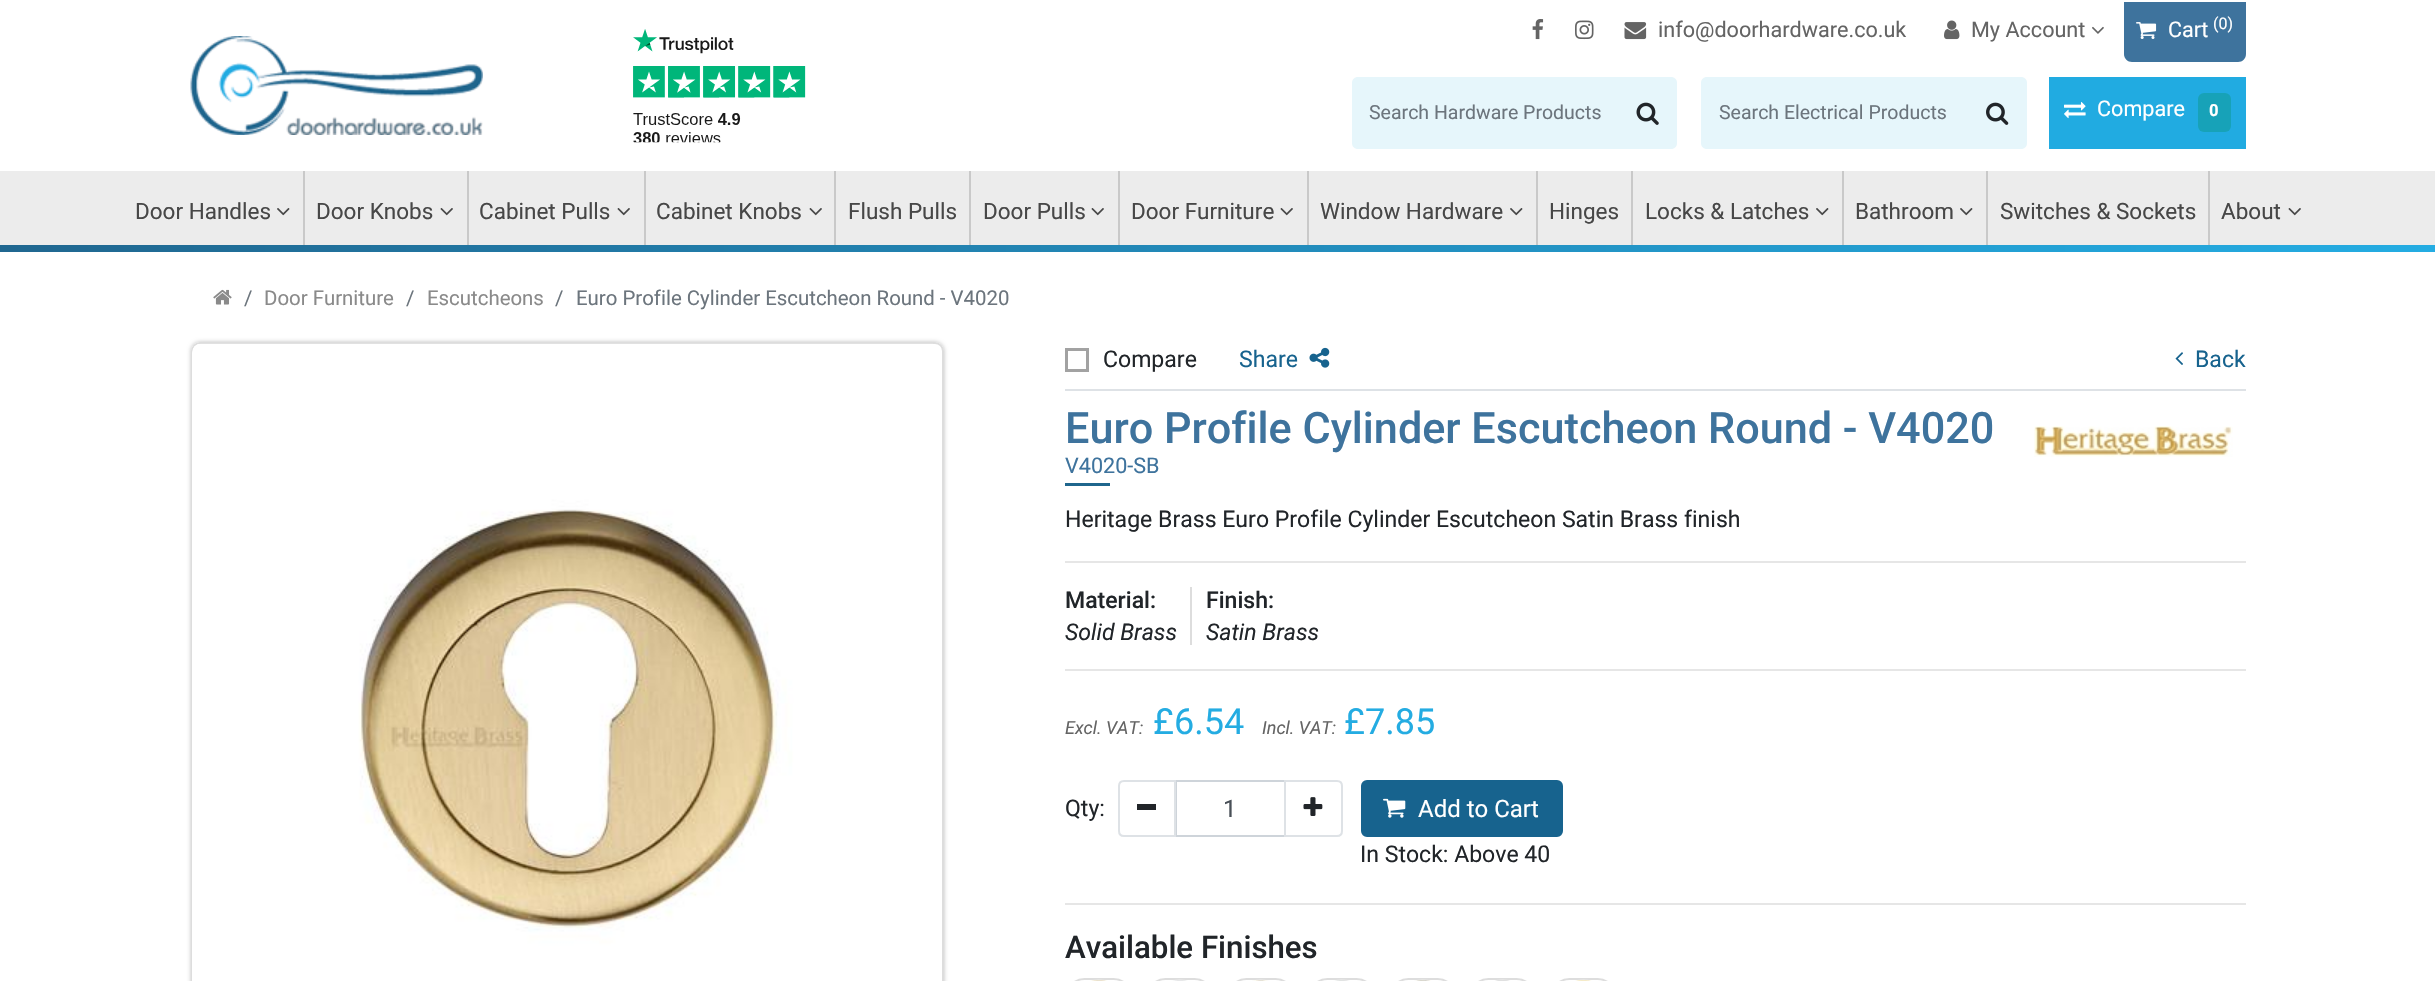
void draw(SkCanvas* canvas) {
    SkPaint paint;
    paint.setAntiAlias(true);
    canvas->clear(0xFFFFFFFF);
    canvas->drawImageRect(SkImages::DeferredFromEncodedData(SkData::MakeFromFileName("img1.png")), SkRect::MakeXYWH(190, 36, 293, 99), SkSamplingOptions());
    canvas->drawImageRect(SkImages::DeferredFromEncodedData(SkData::MakeFromFileName("img2.png")), SkRect::MakeXYWH(633, 29, 173, 114), SkSamplingOptions());
    canvas->drawImageRect(SkImages::DeferredFromEncodedData(SkData::MakeFromFileName("img3.png")), SkRect::MakeXYWH(1532, 19, 12, 21), SkSamplingOptions());
    canvas->drawImageRect(SkImages::DeferredFromEncodedData(SkData::MakeFromFileName("img4.png")), SkRect::MakeXYWH(1575, 20, 19, 20), SkSamplingOptions());
    canvas->drawImageRect(SkImages::DeferredFromEncodedData(SkData::MakeFromFileName("img5.png")), SkRect::MakeXYWH(1624, 22, 23, 18), SkSamplingOptions());
    SkFont font1(fontMgr->matchFamilyStyle("Roboto", SkFontStyle::Normal()), 21.6f);
    font1.setSubpixel(true);
    paint.setColor(0xFF646464);
    canvas->drawString("info@doorhardware.co.uk", 1658, 37, font1, paint);
    canvas->drawImageRect(SkImages::DeferredFromEncodedData(SkData::MakeFromFileName("img6.png")), SkRect::MakeXYWH(1944, 20, 16, 20), SkSamplingOptions());
    canvas->drawString("My Account", 1971, 37, font1, paint);
    canvas->drawImageRect(SkImages::DeferredFromEncodedData(SkData::MakeFromFileName("img7.png")), SkRect::MakeXYWH(2092, 26, 12, 8), SkSamplingOptions());
    paint.setColor(0xFF3E739D);
    canvas->drawPath(SkPathBuilder().moveTo(2124, 2).lineTo(2246, 2).lineTo(2246, 54).cubicTo(2246, 58.5f, 2242.5f, 62, 2238, 62).lineTo(2132, 62).cubicTo(2127.5f, 62, 2124, 58.5f, 2124, 54).close().detach(), paint);
    canvas->drawImageRect(SkImages::DeferredFromEncodedData(SkData::MakeFromFileName("img8.png")), SkRect::MakeXYWH(2136, 22, 21, 17), SkSamplingOptions());
    paint.setColor(0xFFFFFFFF);
    canvas->drawString("Cart", 2168, 37, font1, paint);
    SkFont font2(fontMgr->matchFamilyStyle("Roboto", SkFontStyle::Normal()), 16);
    font2.setSubpixel(true);
    canvas->drawString("(0)", 2213, 29, font2, paint);
    paint.setColor(0xFFE6F6FB);
    canvas->drawPath(SkPathBuilder().moveTo(1358, 77).lineTo(1620, 77).lineTo(1620, 149).lineTo(1358, 149).cubicTo(1354.5f, 149, 1352, 146.5f, 1352, 143).lineTo(1352, 83).cubicTo(1352, 79.5f, 1354.5f, 77, 1358, 77).close().detach(), paint);
    SkFont font3(fontMgr->matchFamilyStyle("Roboto", SkFontStyle::Normal()), 19.5f);
    font3.setSubpixel(true);
    paint.setColor(0xFF6C757D);
    canvas->drawString("Search Hardware Products", 1369, 119, font3, paint);
    paint.setColor(0xFFE6F6FB);
    canvas->drawPath(SkPathBuilder().moveTo(1619, 77).lineTo(1671, 77).cubicTo(1674.5f, 77, 1677, 79.5f, 1677, 83).lineTo(1677, 143).cubicTo(1677, 146.5f, 1674.5f, 149, 1671, 149).lineTo(1619, 149).close().detach(), paint);
    canvas->drawImageRect(SkImages::DeferredFromEncodedData(SkData::MakeFromFileName("img9.png")), SkRect::MakeXYWH(1636, 102, 23, 23), SkSamplingOptions());
    canvas->drawPath(SkPathBuilder().moveTo(1707, 77).lineTo(1970, 77).lineTo(1970, 149).lineTo(1707, 149).cubicTo(1703.5f, 149, 1701, 146.5f, 1701, 143).lineTo(1701, 83).cubicTo(1701, 79.5f, 1703.5f, 77, 1707, 77).close().detach(), paint);
    paint.setColor(0xFF6C757D);
    canvas->drawString("Search Electrical Products", 1719, 119, font3, paint);
    paint.setColor(0xFFE6F6FB);
    canvas->drawPath(SkPathBuilder().moveTo(1968, 77).lineTo(2021, 77).cubicTo(2024.5f, 77, 2027, 79.5f, 2027, 83).lineTo(2027, 143).cubicTo(2027, 146.5f, 2024.5f, 149, 2021, 149).lineTo(1968, 149).close().detach(), paint);
    canvas->drawImageRect(SkImages::DeferredFromEncodedData(SkData::MakeFromFileName("img10.png")), SkRect::MakeXYWH(1986, 102, 23, 23), SkSamplingOptions());
    paint.setColor(0xFF21ABE1);
    canvas->drawRect(SkRect::MakeXYWH(2049, 77, 197, 72), paint);
    canvas->drawImageRect(SkImages::DeferredFromEncodedData(SkData::MakeFromFileName("img11.png")), SkRect::MakeXYWH(2064, 102, 22, 17), SkSamplingOptions());
    paint.setColor(0xFFFFFFFF);
    canvas->drawString("Compare", 2097, 116, font1, paint);
    paint.setColor(0xFF17A2B8);
    canvas->drawRoundRect(SkRect::MakeXYWH(2198, 93, 33, 39), 6, 6, paint);
    SkFont font4(fontMgr->matchFamilyStyle("Roboto", SkFontStyle::Bold()), 16);
    font4.setSubpixel(true);
    paint.setColor(0xFFFFFFFF);
    canvas->drawString("0", 2209, 116, font4, paint);
    paint.setColor(0xFFECECEC);
    canvas->drawRect(SkRect::MakeXYWH(0, 171, 2435, 74), paint);
    paint.setColor(0xFFC9C9C9);
    canvas->drawRect(SkRect::MakeXYWH(303, 171, 2, 81), paint);
    SkFont font5(fontMgr->matchFamilyStyle("Roboto", SkFontStyle::Normal()), 22.5f);
    font5.setSubpixel(true);
    paint.setColor(0xFF474747);
    canvas->drawString("Door Handles", 135, 219, font5, paint);
    canvas->drawImageRect(SkImages::DeferredFromEncodedData(SkData::MakeFromFileName("img12.png")), SkRect::MakeXYWH(277, 208, 13, 8), SkSamplingOptions());
    paint.setColor(0xFFC9C9C9);
    canvas->drawRect(SkRect::MakeXYWH(467, 171, 2, 81), paint);
    paint.setColor(0xFF474747);
    canvas->drawString("Door Knobs", 316, 219, font5, paint);
    canvas->drawImageRect(SkImages::DeferredFromEncodedData(SkData::MakeFromFileName("img13.png")), SkRect::MakeXYWH(440, 208, 13, 8), SkSamplingOptions());
    paint.setColor(0xFFC9C9C9);
    canvas->drawRect(SkRect::MakeXYWH(644, 171, 2, 81), paint);
    paint.setColor(0xFF474747);
    canvas->drawString("Cabinet Pulls", 479, 219, font5, paint);
    canvas->drawImageRect(SkImages::DeferredFromEncodedData(SkData::MakeFromFileName("img13.png")), SkRect::MakeXYWH(617, 208, 13, 8), SkSamplingOptions());
    paint.setColor(0xFFC9C9C9);
    canvas->drawRect(SkRect::MakeXYWH(834, 171, 2, 81), paint);
    paint.setColor(0xFF474747);
    canvas->drawString("Cabinet Knobs", 656, 219, font5, paint);
    canvas->drawImageRect(SkImages::DeferredFromEncodedData(SkData::MakeFromFileName("img13.png")), SkRect::MakeXYWH(809, 208, 13, 8), SkSamplingOptions());
    paint.setColor(0xFFC9C9C9);
    canvas->drawRect(SkRect::MakeXYWH(969, 171, 2, 81), paint);
    paint.setColor(0xFF474747);
    canvas->drawString("Flush Pulls", 848, 219, font5, paint);
    paint.setColor(0xFFC9C9C9);
    canvas->drawRect(SkRect::MakeXYWH(1118, 171, 2, 81), paint);
    paint.setColor(0xFF474747);
    canvas->drawString("Door Pulls", 983, 219, font5, paint);
    canvas->drawImageRect(SkImages::DeferredFromEncodedData(SkData::MakeFromFileName("img13.png")), SkRect::MakeXYWH(1091, 208, 13, 8), SkSamplingOptions());
    paint.setColor(0xFFC9C9C9);
    canvas->drawRect(SkRect::MakeXYWH(1307, 171, 2, 81), paint);
    paint.setColor(0xFF474747);
    canvas->drawString("Door Furniture", 1131, 219, font5, paint);
    canvas->drawImageRect(SkImages::DeferredFromEncodedData(SkData::MakeFromFileName("img13.png")), SkRect::MakeXYWH(1280, 208, 13, 8), SkSamplingOptions());
    paint.setColor(0xFFC9C9C9);
    canvas->drawRect(SkRect::MakeXYWH(1536, 171, 2, 81), paint);
    paint.setColor(0xFF474747);
    canvas->drawString("Window Hardware", 1320, 219, font5, paint);
    canvas->drawImageRect(SkImages::DeferredFromEncodedData(SkData::MakeFromFileName("img12.png")), SkRect::MakeXYWH(1510, 208, 13, 8), SkSamplingOptions());
    paint.setColor(0xFFC9C9C9);
    canvas->drawRect(SkRect::MakeXYWH(1631, 171, 2, 81), paint);
    paint.setColor(0xFF474747);
    canvas->drawString("Hinges", 1549, 219, font5, paint);
    paint.setColor(0xFFC9C9C9);
    canvas->drawRect(SkRect::MakeXYWH(1842, 171, 2, 81), paint);
    paint.setColor(0xFF474747);
    canvas->drawString("Locks & Latches", 1645, 219, font5, paint);
    canvas->drawImageRect(SkImages::DeferredFromEncodedData(SkData::MakeFromFileName("img12.png")), SkRect::MakeXYWH(1816, 208, 13, 8), SkSamplingOptions());
    paint.setColor(0xFFC9C9C9);
    canvas->drawRect(SkRect::MakeXYWH(1986, 171, 2, 81), paint);
    paint.setColor(0xFF474747);
    canvas->drawString("Bathroom", 1855, 219, font5, paint);
    canvas->drawImageRect(SkImages::DeferredFromEncodedData(SkData::MakeFromFileName("img12.png")), SkRect::MakeXYWH(1960, 208, 13, 8), SkSamplingOptions());
    paint.setColor(0xFFC9C9C9);
    canvas->drawRect(SkRect::MakeXYWH(2208, 171, 2, 81), paint);
    paint.setColor(0xFF474747);
    canvas->drawString("Switches & Sockets", 2000, 219, font5, paint);
    canvas->drawString("About", 2221, 219, font5, paint);
    canvas->drawImageRect(SkImages::DeferredFromEncodedData(SkData::MakeFromFileName("img13.png")), SkRect::MakeXYWH(2288, 208, 13, 8), SkSamplingOptions());
    {
        const SkColor colors[] = {0xFF206790, 0xFF24ACE2};
        const float stops[] = {0, 1};
        const SkPoint ends[] = {{0, 248}, {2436, 248}};
        paint.setShader(SkGradientShader::MakeLinear(ends, colors, stops, 2, SkTileMode::kClamp));
        paint.setAlpha(255);
    }
    canvas->drawRect(SkRect::MakeXYWH(0, 245, 2435, 7), paint);
    canvas->drawImageRect(SkImages::DeferredFromEncodedData(SkData::MakeFromFileName("img14.png")), SkRect::MakeXYWH(213, 289, 19, 16), SkSamplingOptions());
    SkFont font6(fontMgr->matchFamilyStyle("Roboto", SkFontStyle::Normal()), 20.4f);
    font6.setSubpixel(true);
    paint.setShader(nullptr);
    paint.setColor(0xFF6C757D);
    canvas->drawString("/", 244, 305, font6, paint);
    paint.setColor(0xFF8A8A8A);
    canvas->drawString("Door Furniture", 264, 305, font6, paint);
    paint.setColor(0xFF6C757D);
    canvas->drawString("/", 406, 305, font6, paint);
    paint.setColor(0xFF8A8A8A);
    canvas->drawString("Escutcheons", 427, 305, font6, paint);
    paint.setColor(0xFF6C757D);
    canvas->drawString("/", 555, 305, font6, paint);
    canvas->drawString("Euro Profile Cylinder Escutcheon Round - V4020", 576, 305, font6, paint);
    canvas->save();
    canvas->clipPath(SkPathBuilder(SkPathFillType::kEvenOdd).moveTo(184, 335).lineTo(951, 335).lineTo(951, 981).lineTo(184, 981).close().moveTo(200, 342).lineTo(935, 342).cubicTo(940, 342, 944, 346, 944, 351).lineTo(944, 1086).cubicTo(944, 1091, 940, 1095, 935, 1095).lineTo(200, 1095).cubicTo(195, 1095, 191, 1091, 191, 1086).lineTo(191, 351).cubicTo(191, 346, 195, 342, 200, 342).close().detach(), true);
    paint.setColor(0x40000000);
    paint.setMaskFilter(SkMaskFilter::MakeBlur(kNormal_SkBlurStyle, 2));
    canvas->drawRoundRect(SkRect::MakeXYWH(191, 342, 753, 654), 9, 9, paint);
    paint.setMaskFilter(nullptr);
    canvas->restore();
    paint.setStyle(SkPaint::kStroke_Style);
    paint.setStrokeWidth(2);
    paint.setColor(0xFFDDDDDD);
    canvas->drawRoundRect(SkRect::MakeXYWH(192, 343, 751, 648), 8, 8, paint);
    canvas->drawImageRect(SkImages::DeferredFromEncodedData(SkData::MakeFromFileName("img15.png")), SkRect::MakeXYWH(192, 343, 741, 638), SkSamplingOptions());
    paint.setStyle(SkPaint::kFill_Style);
    paint.setColor(0xFFDEE2E6);
    canvas->drawRect(SkRect::MakeXYWH(1065, 389, 1181, 2), paint);
    paint.setStyle(SkPaint::kStroke_Style);
    paint.setStrokeWidth(3);
    paint.setColor(0xFFA2A2A2);
    canvas->drawRect(SkRect::MakeXYWH(1066.5f, 349.5f, 21, 21), paint);
    SkFont font7(fontMgr->matchFamilyStyle("Roboto", SkFontStyle::Normal()), 23.05f);
    font7.setSubpixel(true);
    paint.setStyle(SkPaint::kFill_Style);
    paint.setColor(0xFF212529);
    canvas->drawString("Compare", 1103, 367, font7, paint);
    paint.setColor(0xFF17638E);
    canvas->drawString("Share", 1239, 367, font7, paint);
    canvas->drawImageRect(SkImages::DeferredFromEncodedData(SkData::MakeFromFileName("img16.png")), SkRect::MakeXYWH(1309, 347, 21, 21), SkSamplingOptions());
    canvas->drawImageRect(SkImages::DeferredFromEncodedData(SkData::MakeFromFileName("img17.png")), SkRect::MakeXYWH(2175, 352, 8, 13), SkSamplingOptions());
    canvas->drawString("Back", 2195, 367, font7, paint);
    SkFont font8(fontMgr->matchFamilyStyle("Roboto", SkFontStyle(500, SkFontStyle::kNormal_Width, SkFontStyle::kUpright_Slant)), 43.2f);
    font8.setSubpixel(true);
    paint.setColor(0xFF3E739D);
    canvas->drawString("Euro Profile Cylinder Escutcheon Round - V4020", 1065, 443, font8, paint);
    canvas->drawString("V4020-SB", 1065, 473, font1, paint);
    paint.setColor(0xFF1F668D);
    canvas->drawRect(SkRect::MakeXYWH(1065, 483, 45, 3), paint);
    canvas->drawImageRect(SkImages::DeferredFromEncodedData(SkData::MakeFromFileName("img18.png")), SkRect::MakeXYWH(2034, 426, 199, 31), SkSamplingOptions());
    paint.setColor(0xFF212529);
    canvas->drawString("Heritage Brass Euro Profile Cylinder Escutcheon Satin Brass finish", 1065, 527, font7, paint);
    paint.setColor(0xFFE6E6E6);
    canvas->drawRect(SkRect::MakeXYWH(1065, 561, 1181, 2), paint);
    SkFont font9(fontMgr->matchFamilyStyle("Roboto", SkFontStyle(500, SkFontStyle::kNormal_Width, SkFontStyle::kUpright_Slant)), 23.05f);
    font9.setSubpixel(true);
    paint.setColor(0xFF212529);
    canvas->drawString("Material:", 1065, 608, font9, paint);
    SkFont font10(fontMgr->matchFamilyStyle("Roboto", SkFontStyle::Italic()), 23.05f);
    font10.setSubpixel(true);
    canvas->drawString("Solid Brass", 1065, 640, font10, paint);
    paint.setColor(0xFFDDDDDD);
    canvas->drawRect(SkRect::MakeXYWH(1190, 587, 2, 58), paint);
    paint.setColor(0xFF212529);
    canvas->drawString("Finish:", 1206, 608, font9, paint);
    canvas->drawString("Satin Brass", 1206, 640, font10, paint);
    paint.setColor(0xFFE6E6E6);
    canvas->drawRect(SkRect::MakeXYWH(1065, 669, 1181, 2), paint);
    SkFont font11(fontMgr->matchFamilyStyle("Roboto", SkFontStyle::Italic()), 18);
    font11.setSubpixel(true);
    paint.setColor(0xFF646464);
    canvas->drawString("Excl. VAT:", 1065, 734, font11, paint);
    SkFont font12(fontMgr->matchFamilyStyle("Roboto", SkFontStyle::Normal()), 36);
    font12.setSubpixel(true);
    paint.setColor(0xFF24ACE2);
    canvas->drawString("£6.54", 1153, 734, font12, paint);
    paint.setColor(0xFF646464);
    canvas->drawString("Incl. VAT:", 1262, 734, font11, paint);
    paint.setColor(0xFF24ACE2);
    canvas->drawString("£7.85", 1344, 734, font12, paint);
    paint.setColor(0xFF212529);
    canvas->drawString("Qty:", 1065, 816, font7, paint);
    paint.setStyle(SkPaint::kStroke_Style);
    paint.setStrokeWidth(2);
    paint.setColor(0xFFCED4DA);
    canvas->drawRect(SkRect::MakeXYWH(1176, 781, 109, 55), paint);
    paint.setColor(0xFFDEE2E6);
    canvas->drawPath(SkPathBuilder().moveTo(1124, 781).lineTo(1175, 781).lineTo(1175, 836).lineTo(1124, 836).cubicTo(1121, 836, 1119, 834, 1119, 831).lineTo(1119, 786).cubicTo(1119, 783, 1121, 781, 1124, 781).close().detach(), paint);
    paint.setStyle(SkPaint::kFill_Style);
    paint.setColor(0xFF212529);
    canvas->drawRect(SkRect::MakeXYWH(1137, 804, 19, 6), paint);
    SkFont font13(fontMgr->matchFamilyStyle("Roboto", SkFontStyle::Normal()), 24);
    font13.setSubpixel(true);
    paint.setColor(0xFF495057);
    canvas->drawString("1", 1223, 817, font13, paint);
    paint.setStyle(SkPaint::kStroke_Style);
    paint.setColor(0xFFDEE2E6);
    canvas->drawPath(SkPathBuilder().moveTo(1285, 781).lineTo(1337, 781).cubicTo(1340, 781, 1342, 783, 1342, 786).lineTo(1342, 831).cubicTo(1342, 834, 1340, 836, 1337, 836).lineTo(1285, 836).close().detach(), paint);
    canvas->drawImageRect(SkImages::DeferredFromEncodedData(SkData::MakeFromFileName("img19.png")), SkRect::MakeXYWH(1303, 797, 20, 19), SkSamplingOptions());
    paint.setStyle(SkPaint::kFill_Style);
    paint.setColor(0xFF17638E);
    canvas->drawRoundRect(SkRect::MakeXYWH(1362, 781, 200, 55), 5, 5, paint);
    paint.setStyle(SkPaint::kStroke_Style);
    canvas->drawRoundRect(SkRect::MakeXYWH(1362, 781, 200, 55), 5, 5, paint);
    canvas->drawImageRect(SkImages::DeferredFromEncodedData(SkData::MakeFromFileName("img20.png")), SkRect::MakeXYWH(1383, 798, 23, 20), SkSamplingOptions());
    paint.setStyle(SkPaint::kFill_Style);
    paint.setColor(0xFFFFFFFF);
    canvas->drawString("Add to Cart", 1418, 817, font13, paint);
    paint.setColor(0xFF212529);
    canvas->drawString("In Stock: Above 40", 1360, 862, font7, paint);
    paint.setColor(0xFFE6E6E6);
    canvas->drawRect(SkRect::MakeXYWH(1065, 903, 1181, 2), paint);
    SkFont font14(fontMgr->matchFamilyStyle("Roboto", SkFontStyle(500, SkFontStyle::kNormal_Width, SkFontStyle::kUpright_Slant)), 31.25f);
    font14.setSubpixel(true);
    paint.setColor(0xFF212529);
    canvas->drawString("Available Finishes", 1065, 958, font14, paint);
    paint.setStyle(SkPaint::kStroke_Style);
    paint.setColor(0xFFDDDDDD);
    canvas->drawRoundRect(SkRect::MakeXYWH(1066, 979, 66, 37), 33, 33, paint);
    canvas->drawImageRect(SkImages::DeferredFromEncodedData(SkData::MakeFromFileName("img21.png")), SkRect::MakeXYWH(1090, 979, 18, 2), SkSamplingOptions());
    canvas->drawRoundRect(SkRect::MakeXYWH(1147, 979, 66, 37), 33, 33, paint);
    canvas->drawImageRect(SkImages::DeferredFromEncodedData(SkData::MakeFromFileName("img22.png")), SkRect::MakeXYWH(1171, 979, 18, 2), SkSamplingOptions());
    canvas->drawRoundRect(SkRect::MakeXYWH(1228, 979, 66, 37), 33, 33, paint);
    canvas->drawImageRect(SkImages::DeferredFromEncodedData(SkData::MakeFromFileName("img23.png")), SkRect::MakeXYWH(1252, 979, 18, 2), SkSamplingOptions());
    canvas->drawRoundRect(SkRect::MakeXYWH(1309, 979, 66, 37), 33, 33, paint);
    canvas->drawImageRect(SkImages::DeferredFromEncodedData(SkData::MakeFromFileName("img24.png")), SkRect::MakeXYWH(1333, 979, 18, 2), SkSamplingOptions());
    canvas->drawRoundRect(SkRect::MakeXYWH(1390, 979, 66, 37), 33, 33, paint);
    canvas->drawImageRect(SkImages::DeferredFromEncodedData(SkData::MakeFromFileName("img25.png")), SkRect::MakeXYWH(1414, 979, 18, 2), SkSamplingOptions());
    canvas->drawRoundRect(SkRect::MakeXYWH(1470, 979, 65, 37), 32.5f, 32.5f, paint);
    canvas->drawImageRect(SkImages::DeferredFromEncodedData(SkData::MakeFromFileName("img26.png")), SkRect::MakeXYWH(1493, 979, 18, 2), SkSamplingOptions());
    canvas->drawRoundRect(SkRect::MakeXYWH(1551, 979, 65, 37), 32.5f, 32.5f, paint);
    canvas->drawImageRect(SkImages::DeferredFromEncodedData(SkData::MakeFromFileName("img27.png")), SkRect::MakeXYWH(1574, 979, 18, 2), SkSamplingOptions());
}
